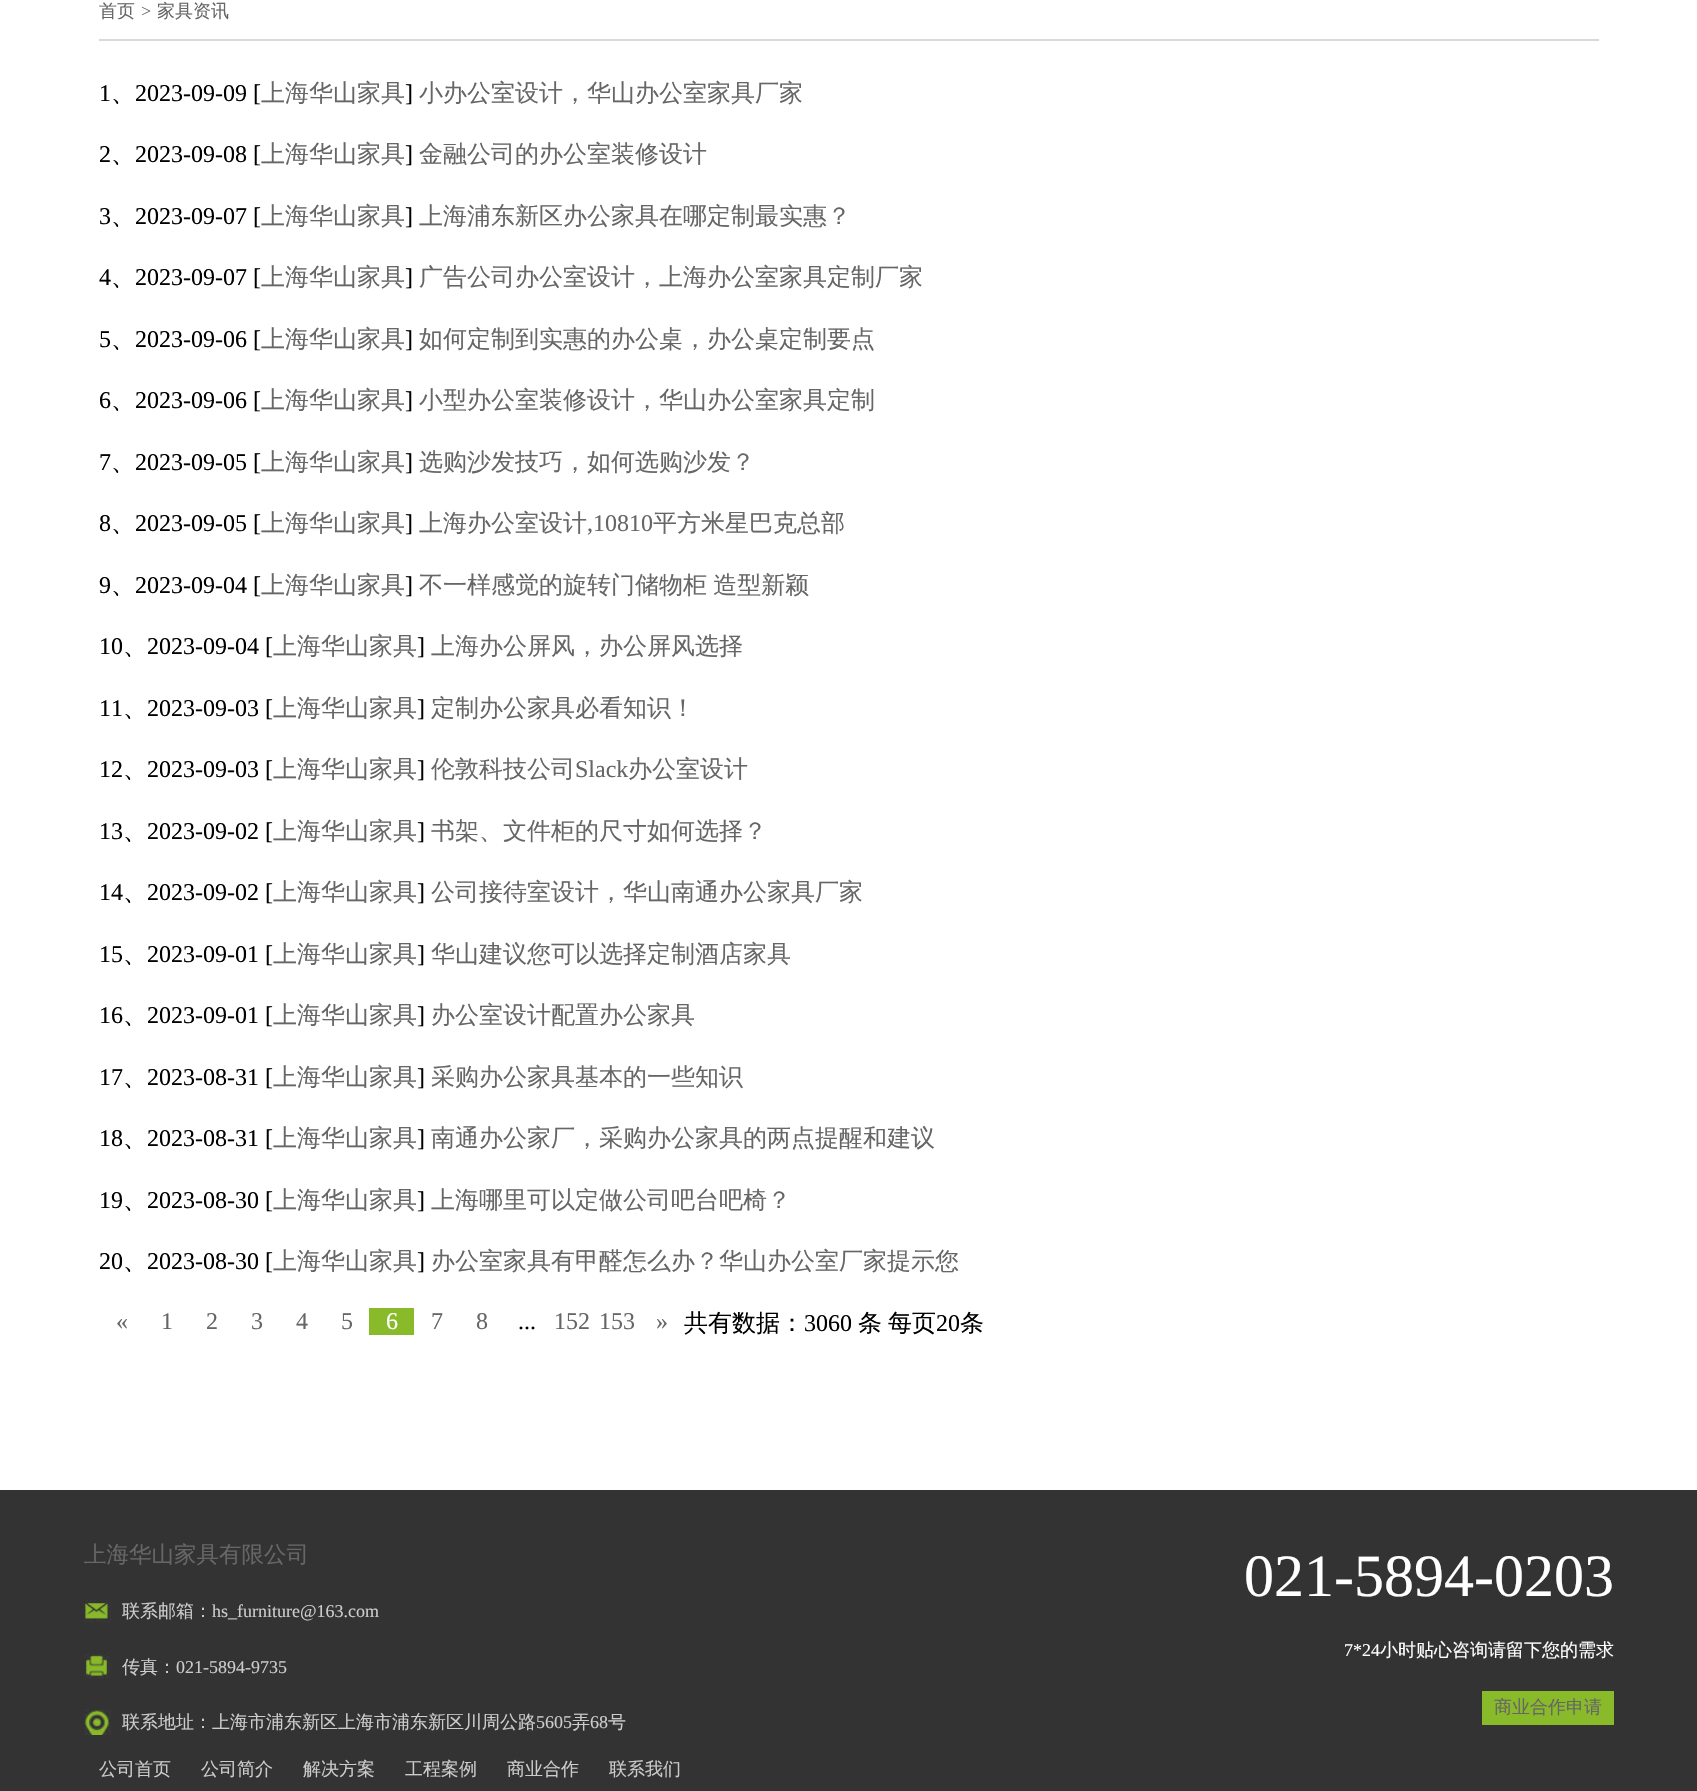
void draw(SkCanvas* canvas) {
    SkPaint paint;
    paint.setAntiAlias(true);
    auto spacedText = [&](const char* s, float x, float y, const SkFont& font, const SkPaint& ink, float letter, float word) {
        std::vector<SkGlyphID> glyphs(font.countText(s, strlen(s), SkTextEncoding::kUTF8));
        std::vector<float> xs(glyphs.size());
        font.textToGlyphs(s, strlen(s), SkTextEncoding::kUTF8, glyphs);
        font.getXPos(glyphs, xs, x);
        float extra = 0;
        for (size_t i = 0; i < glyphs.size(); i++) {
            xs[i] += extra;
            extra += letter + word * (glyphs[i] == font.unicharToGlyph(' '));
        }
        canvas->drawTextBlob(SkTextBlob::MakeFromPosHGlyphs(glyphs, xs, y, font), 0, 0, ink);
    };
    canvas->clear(0xFFFFFFFF);
    paint.setColor(0xFFD9D9D9);
    canvas->drawRect(SkRect::MakeXYWH(99, 39, 1500, 2), paint);
    SkFont font1(fontMgr->matchFamilyStyle("WenQuanYi Zen Hei", SkFontStyle(500, SkFontStyle::kNormal_Width, SkFontStyle::kUpright_Slant)), 18);
    font1.setSubpixel(true);
    paint.setColor(0xFF666666);
    canvas->drawString("首页", 99, 17, font1, paint);
    SkFont font2(fontMgr->matchFamilyStyle("Liberation Serif", SkFontStyle::Normal()), 18);
    font2.setSubpixel(true);
    canvas->drawString(">", 141, 17, font2, paint);
    canvas->drawString("家具资讯", 157, 17, font1, paint);
    SkFont font3(fontMgr->matchFamilyStyle("Liberation Serif", SkFontStyle::Normal()), 24);
    font3.setSubpixel(true);
    paint.setColor(0xFF000000);
    canvas->drawString("1", 99, 101, font3, paint);
    canvas->drawString("2023-09-09 [", 135, 101, font3, paint);
    SkFont font4(fontMgr->matchFamilyStyle("WenQuanYi Zen Hei", SkFontStyle(500, SkFontStyle::kNormal_Width, SkFontStyle::kUpright_Slant)), 24);
    font4.setSubpixel(true);
    paint.setColor(0xFF666666);
    canvas->drawString("上海华山家具", 261, 101, font4, paint);
    paint.setColor(0xFF000000);
    canvas->drawString("]", 405, 101, font3, paint);
    paint.setColor(0xFF666666);
    canvas->drawString("小办公室设计，华山办公室家具厂家", 419, 101, font4, paint);
    paint.setColor(0xFF000000);
    canvas->drawString("、", 111, 101, font4, paint);
    canvas->drawString("2", 99, 162, font3, paint);
    canvas->drawString("2023-09-08 [", 135, 162, font3, paint);
    paint.setColor(0xFF666666);
    canvas->drawString("上海华山家具", 261, 162, font4, paint);
    paint.setColor(0xFF000000);
    canvas->drawString("]", 405, 162, font3, paint);
    paint.setColor(0xFF666666);
    canvas->drawString("金融公司的办公室装修设计", 419, 162, font4, paint);
    paint.setColor(0xFF000000);
    canvas->drawString("、", 111, 162, font4, paint);
    canvas->drawString("3", 99, 224, font3, paint);
    canvas->drawString("、", 111, 224, font4, paint);
    canvas->drawString("2023-09-07 [", 135, 224, font3, paint);
    paint.setColor(0xFF666666);
    canvas->drawString("上海华山家具", 261, 224, font4, paint);
    paint.setColor(0xFF000000);
    canvas->drawString("]", 405, 224, font3, paint);
    paint.setColor(0xFF666666);
    canvas->drawString("上海浦东新区办公家具在哪定制最实惠？", 419, 224, font4, paint);
    paint.setColor(0xFF000000);
    canvas->drawString("4", 99, 285, font3, paint);
    canvas->drawString("2023-09-07 [", 135, 285, font3, paint);
    paint.setColor(0xFF666666);
    canvas->drawString("上海华山家具", 261, 285, font4, paint);
    paint.setColor(0xFF000000);
    canvas->drawString("]", 405, 285, font3, paint);
    paint.setColor(0xFF666666);
    canvas->drawString("广告公司办公室设计，上海办公室家具定制厂家", 419, 285, font4, paint);
    paint.setColor(0xFF000000);
    canvas->drawString("、", 111, 285, font4, paint);
    canvas->drawString("5", 99, 347, font3, paint);
    canvas->drawString("、", 111, 347, font4, paint);
    canvas->drawString("2023-09-06 [", 135, 347, font3, paint);
    paint.setColor(0xFF666666);
    canvas->drawString("上海华山家具", 261, 347, font4, paint);
    paint.setColor(0xFF000000);
    canvas->drawString("]", 405, 347, font3, paint);
    paint.setColor(0xFF666666);
    canvas->drawString("如何定制到实惠的办公桌，办公桌定制要点", 419, 347, font4, paint);
    paint.setColor(0xFF000000);
    canvas->drawString("6", 99, 408, font3, paint);
    canvas->drawString("、", 111, 408, font4, paint);
    canvas->drawString("2023-09-06 [", 135, 408, font3, paint);
    paint.setColor(0xFF666666);
    canvas->drawString("上海华山家具", 261, 408, font4, paint);
    paint.setColor(0xFF000000);
    canvas->drawString("]", 405, 408, font3, paint);
    paint.setColor(0xFF666666);
    canvas->drawString("小型办公室装修设计，华山办公室家具定制", 419, 408, font4, paint);
    paint.setColor(0xFF000000);
    canvas->drawString("7", 99, 470, font3, paint);
    canvas->drawString("2023-09-05 [", 135, 470, font3, paint);
    paint.setColor(0xFF666666);
    canvas->drawString("上海华山家具", 261, 470, font4, paint);
    paint.setColor(0xFF000000);
    canvas->drawString("]", 405, 470, font3, paint);
    paint.setColor(0xFF666666);
    canvas->drawString("选购沙发技巧，如何选购沙发？", 419, 470, font4, paint);
    paint.setColor(0xFF000000);
    canvas->drawString("、", 111, 470, font4, paint);
    canvas->drawString("8", 99, 531, font3, paint);
    canvas->drawString("、", 111, 531, font4, paint);
    canvas->drawString("2023-09-05 [", 135, 531, font3, paint);
    paint.setColor(0xFF666666);
    canvas->drawString("上海华山家具", 261, 531, font4, paint);
    paint.setColor(0xFF000000);
    canvas->drawString("]", 405, 531, font3, paint);
    paint.setColor(0xFF666666);
    canvas->drawString("上海办公室设计", 419, 531, font4, paint);
    canvas->drawString(",10810", 587, 531, font3, paint);
    canvas->drawString("平方米星巴克总部", 653, 531, font4, paint);
    paint.setColor(0xFF000000);
    canvas->drawString("9", 99, 593, font3, paint);
    canvas->drawString("、", 111, 593, font4, paint);
    canvas->drawString("2023-09-04 [", 135, 593, font3, paint);
    paint.setColor(0xFF666666);
    canvas->drawString("上海华山家具", 261, 593, font4, paint);
    paint.setColor(0xFF000000);
    canvas->drawString("]", 405, 593, font3, paint);
    paint.setColor(0xFF666666);
    spacedText("不一样感觉的旋转门储物柜 造型新颖", 419, 593, font4, paint, 0, -1);
    paint.setColor(0xFF000000);
    canvas->drawString("10", 99, 654, font3, paint);
    canvas->drawString("、", 123, 654, font4, paint);
    canvas->drawString("2023-09-04 [", 147, 654, font3, paint);
    paint.setColor(0xFF666666);
    canvas->drawString("上海华山家具", 273, 654, font4, paint);
    paint.setColor(0xFF000000);
    canvas->drawString("]", 417, 654, font3, paint);
    paint.setColor(0xFF666666);
    canvas->drawString("上海办公屏风，办公屏风选择", 431, 654, font4, paint);
    paint.setColor(0xFF000000);
    canvas->drawString("11", 99, 716, font3, paint);
    canvas->drawString("2023-09-03 [", 147, 716, font3, paint);
    paint.setColor(0xFF666666);
    canvas->drawString("上海华山家具", 273, 716, font4, paint);
    paint.setColor(0xFF000000);
    canvas->drawString("]", 417, 716, font3, paint);
    paint.setColor(0xFF666666);
    canvas->drawString("定制办公家具必看知识！", 431, 716, font4, paint);
    paint.setColor(0xFF000000);
    canvas->drawString("、", 123, 716, font4, paint);
    canvas->drawString("12", 99, 777, font3, paint);
    canvas->drawString("2023-09-03 [", 147, 777, font3, paint);
    paint.setColor(0xFF666666);
    canvas->drawString("上海华山家具", 273, 777, font4, paint);
    paint.setColor(0xFF000000);
    canvas->drawString("]", 417, 777, font3, paint);
    paint.setColor(0xFF666666);
    canvas->drawString("伦敦科技公司", 431, 777, font4, paint);
    canvas->drawString("Slack", 575, 777, font3, paint);
    canvas->drawString("办公室设计", 628, 777, font4, paint);
    paint.setColor(0xFF000000);
    canvas->drawString("、", 123, 777, font4, paint);
    canvas->drawString("13", 99, 839, font3, paint);
    canvas->drawString("、", 123, 839, font4, paint);
    canvas->drawString("2023-09-02 [", 147, 839, font3, paint);
    paint.setColor(0xFF666666);
    canvas->drawString("上海华山家具", 273, 839, font4, paint);
    paint.setColor(0xFF000000);
    canvas->drawString("]", 417, 839, font3, paint);
    paint.setColor(0xFF666666);
    canvas->drawString("书架、文件柜的尺寸如何选择？", 431, 839, font4, paint);
    paint.setColor(0xFF000000);
    canvas->drawString("14", 99, 900, font3, paint);
    canvas->drawString("2023-09-02 [", 147, 900, font3, paint);
    paint.setColor(0xFF666666);
    canvas->drawString("上海华山家具", 273, 900, font4, paint);
    paint.setColor(0xFF000000);
    canvas->drawString("]", 417, 900, font3, paint);
    paint.setColor(0xFF666666);
    canvas->drawString("公司接待室设计，华山南通办公家具厂家", 431, 900, font4, paint);
    paint.setColor(0xFF000000);
    canvas->drawString("、", 123, 900, font4, paint);
    canvas->drawString("15", 99, 962, font3, paint);
    canvas->drawString("、", 123, 962, font4, paint);
    canvas->drawString("2023-09-01 [", 147, 962, font3, paint);
    paint.setColor(0xFF666666);
    canvas->drawString("上海华山家具", 273, 962, font4, paint);
    paint.setColor(0xFF000000);
    canvas->drawString("]", 417, 962, font3, paint);
    paint.setColor(0xFF666666);
    canvas->drawString("华山建议您可以选择定制酒店家具", 431, 962, font4, paint);
    paint.setColor(0xFF000000);
    canvas->drawString("16", 99, 1023, font3, paint);
    canvas->drawString("、", 123, 1023, font4, paint);
    canvas->drawString("2023-09-01 [", 147, 1023, font3, paint);
    paint.setColor(0xFF666666);
    canvas->drawString("上海华山家具", 273, 1023, font4, paint);
    paint.setColor(0xFF000000);
    canvas->drawString("]", 417, 1023, font3, paint);
    paint.setColor(0xFF666666);
    canvas->drawString("办公室设计配置办公家具", 431, 1023, font4, paint);
    paint.setColor(0xFF000000);
    canvas->drawString("17", 99, 1085, font3, paint);
    canvas->drawString("2023-08-31 [", 147, 1085, font3, paint);
    paint.setColor(0xFF666666);
    canvas->drawString("上海华山家具", 273, 1085, font4, paint);
    paint.setColor(0xFF000000);
    canvas->drawString("]", 417, 1085, font3, paint);
    paint.setColor(0xFF666666);
    canvas->drawString("采购办公家具基本的一些知识", 431, 1085, font4, paint);
    paint.setColor(0xFF000000);
    canvas->drawString("、", 123, 1085, font4, paint);
    canvas->drawString("18", 99, 1146, font3, paint);
    canvas->drawString("、", 123, 1146, font4, paint);
    canvas->drawString("2023-08-31 [", 147, 1146, font3, paint);
    paint.setColor(0xFF666666);
    canvas->drawString("上海华山家具", 273, 1146, font4, paint);
    paint.setColor(0xFF000000);
    canvas->drawString("]", 417, 1146, font3, paint);
    paint.setColor(0xFF666666);
    canvas->drawString("南通办公家厂，采购办公家具的两点提醒和建议", 431, 1146, font4, paint);
    paint.setColor(0xFF000000);
    canvas->drawString("19", 99, 1208, font3, paint);
    canvas->drawString("、", 123, 1208, font4, paint);
    canvas->drawString("2023-08-30 [", 147, 1208, font3, paint);
    paint.setColor(0xFF666666);
    canvas->drawString("上海华山家具", 273, 1208, font4, paint);
    paint.setColor(0xFF000000);
    canvas->drawString("]", 417, 1208, font3, paint);
    paint.setColor(0xFF666666);
    canvas->drawString("上海哪里可以定做公司吧台吧椅？", 431, 1208, font4, paint);
    paint.setColor(0xFF000000);
    canvas->drawString("20", 99, 1269, font3, paint);
    canvas->drawString("、", 123, 1269, font4, paint);
    canvas->drawString("2023-08-30 [", 147, 1269, font3, paint);
    paint.setColor(0xFF666666);
    canvas->drawString("上海华山家具", 273, 1269, font4, paint);
    paint.setColor(0xFF000000);
    canvas->drawString("]", 417, 1269, font3, paint);
    paint.setColor(0xFF666666);
    canvas->drawString("办公室家具有甲醛怎么办？华山办公室厂家提示您", 431, 1269, font4, paint);
    canvas->drawString("«", 116, 1329, font3, paint);
    canvas->drawString("1", 161, 1329, font3, paint);
    canvas->drawString("2", 206, 1329, font3, paint);
    canvas->drawString("3", 251, 1329, font3, paint);
    canvas->drawString("4", 296, 1329, font3, paint);
    canvas->drawString("5", 341, 1329, font3, paint);
    paint.setColor(0xFF89BA29);
    canvas->drawRect(SkRect::MakeXYWH(369, 1308, 45, 27), paint);
    paint.setColor(0xFFFFFFFF);
    canvas->drawString("6", 386, 1329, font3, paint);
    paint.setColor(0xFF666666);
    canvas->drawString("7", 431, 1329, font3, paint);
    canvas->drawString("8", 476, 1329, font3, paint);
    paint.setColor(0xFF000000);
    canvas->drawString("...", 518, 1329, font3, paint);
    paint.setColor(0xFF666666);
    canvas->drawString("152", 554, 1329, font3, paint);
    canvas->drawString("153", 599, 1329, font3, paint);
    canvas->drawString("»", 656, 1329, font3, paint);
    paint.setColor(0xFF000000);
    canvas->drawString("共有数据：", 684, 1331, font4, paint);
    canvas->drawString("3060", 804, 1331, font3, paint);
    canvas->drawString("条", 858, 1331, font4, paint);
    canvas->drawString("每页", 888, 1331, font4, paint);
    canvas->drawString("20", 936, 1331, font3, paint);
    canvas->drawString("条", 960, 1331, font4, paint);
    paint.setColor(0xFF333333);
    canvas->drawRect(SkRect::MakeXYWH(0, 1490, 1697, 301), paint);
    SkFont font5(fontMgr->matchFamilyStyle("WenQuanYi Zen Hei", SkFontStyle(500, SkFontStyle::kNormal_Width, SkFontStyle::kUpright_Slant)), 22.5f);
    font5.setSubpixel(true);
    paint.setColor(0xFF666666);
    canvas->drawString("上海华山家具有限公司", 84, 1562, font5, paint);
    canvas->drawImageRect(SkImages::DeferredFromEncodedData(SkData::MakeFromFileName("img1.png")), SkRect::MakeXYWH(84, 1600, 27, 23), SkSamplingOptions());
    paint.setColor(0xFFCCCCCC);
    canvas->drawString("联系邮箱：", 122, 1617, font1, paint);
    canvas->drawString("hs_furniture@163.com", 212, 1617, font2, paint);
    canvas->drawImageRect(SkImages::DeferredFromEncodedData(SkData::MakeFromFileName("img2.png")), SkRect::MakeXYWH(84, 1654, 27, 25), SkSamplingOptions());
    canvas->drawString("传真：", 122, 1673, font1, paint);
    canvas->drawString("021-5894-9735", 176, 1673, font2, paint);
    canvas->drawImageRect(SkImages::DeferredFromEncodedData(SkData::MakeFromFileName("img3.png")), SkRect::MakeXYWH(84, 1709, 27, 26), SkSamplingOptions());
    canvas->drawString("联系地址：上海市浦东新区上海市浦东新区川周公路", 122, 1728, font1, paint);
    canvas->drawString("5605", 536, 1728, font2, paint);
    canvas->drawString("弄", 572, 1728, font1, paint);
    canvas->drawString("68", 590, 1728, font2, paint);
    canvas->drawString("号", 608, 1728, font1, paint);
    SkFont font6(fontMgr->matchFamilyStyle("Liberation Serif", SkFontStyle::Normal()), 60);
    font6.setSubpixel(true);
    paint.setColor(0xFFFFFFFF);
    canvas->drawString("021-5894-0203", 1244, 1596, font6, paint);
    canvas->drawString("7*24", 1344, 1656, font2, paint);
    canvas->drawString("小时贴心咨询请留下您的需求", 1380, 1656, font1, paint);
    paint.setColor(0xFF89BA29);
    canvas->drawRect(SkRect::MakeXYWH(1482, 1691, 132, 34), paint);
    paint.setColor(0xFF666666);
    canvas->drawString("商业合作申请", 1494, 1713, font1, paint);
    paint.setColor(0xFFCCCCCC);
    canvas->drawString("公司首页", 99, 1775, font1, paint);
    canvas->drawString("公司简介", 201, 1775, font1, paint);
    canvas->drawString("解决方案", 303, 1775, font1, paint);
    canvas->drawString("工程案例", 405, 1775, font1, paint);
    canvas->drawString("商业合作", 507, 1775, font1, paint);
    canvas->drawString("联系我们", 609, 1775, font1, paint);
}
